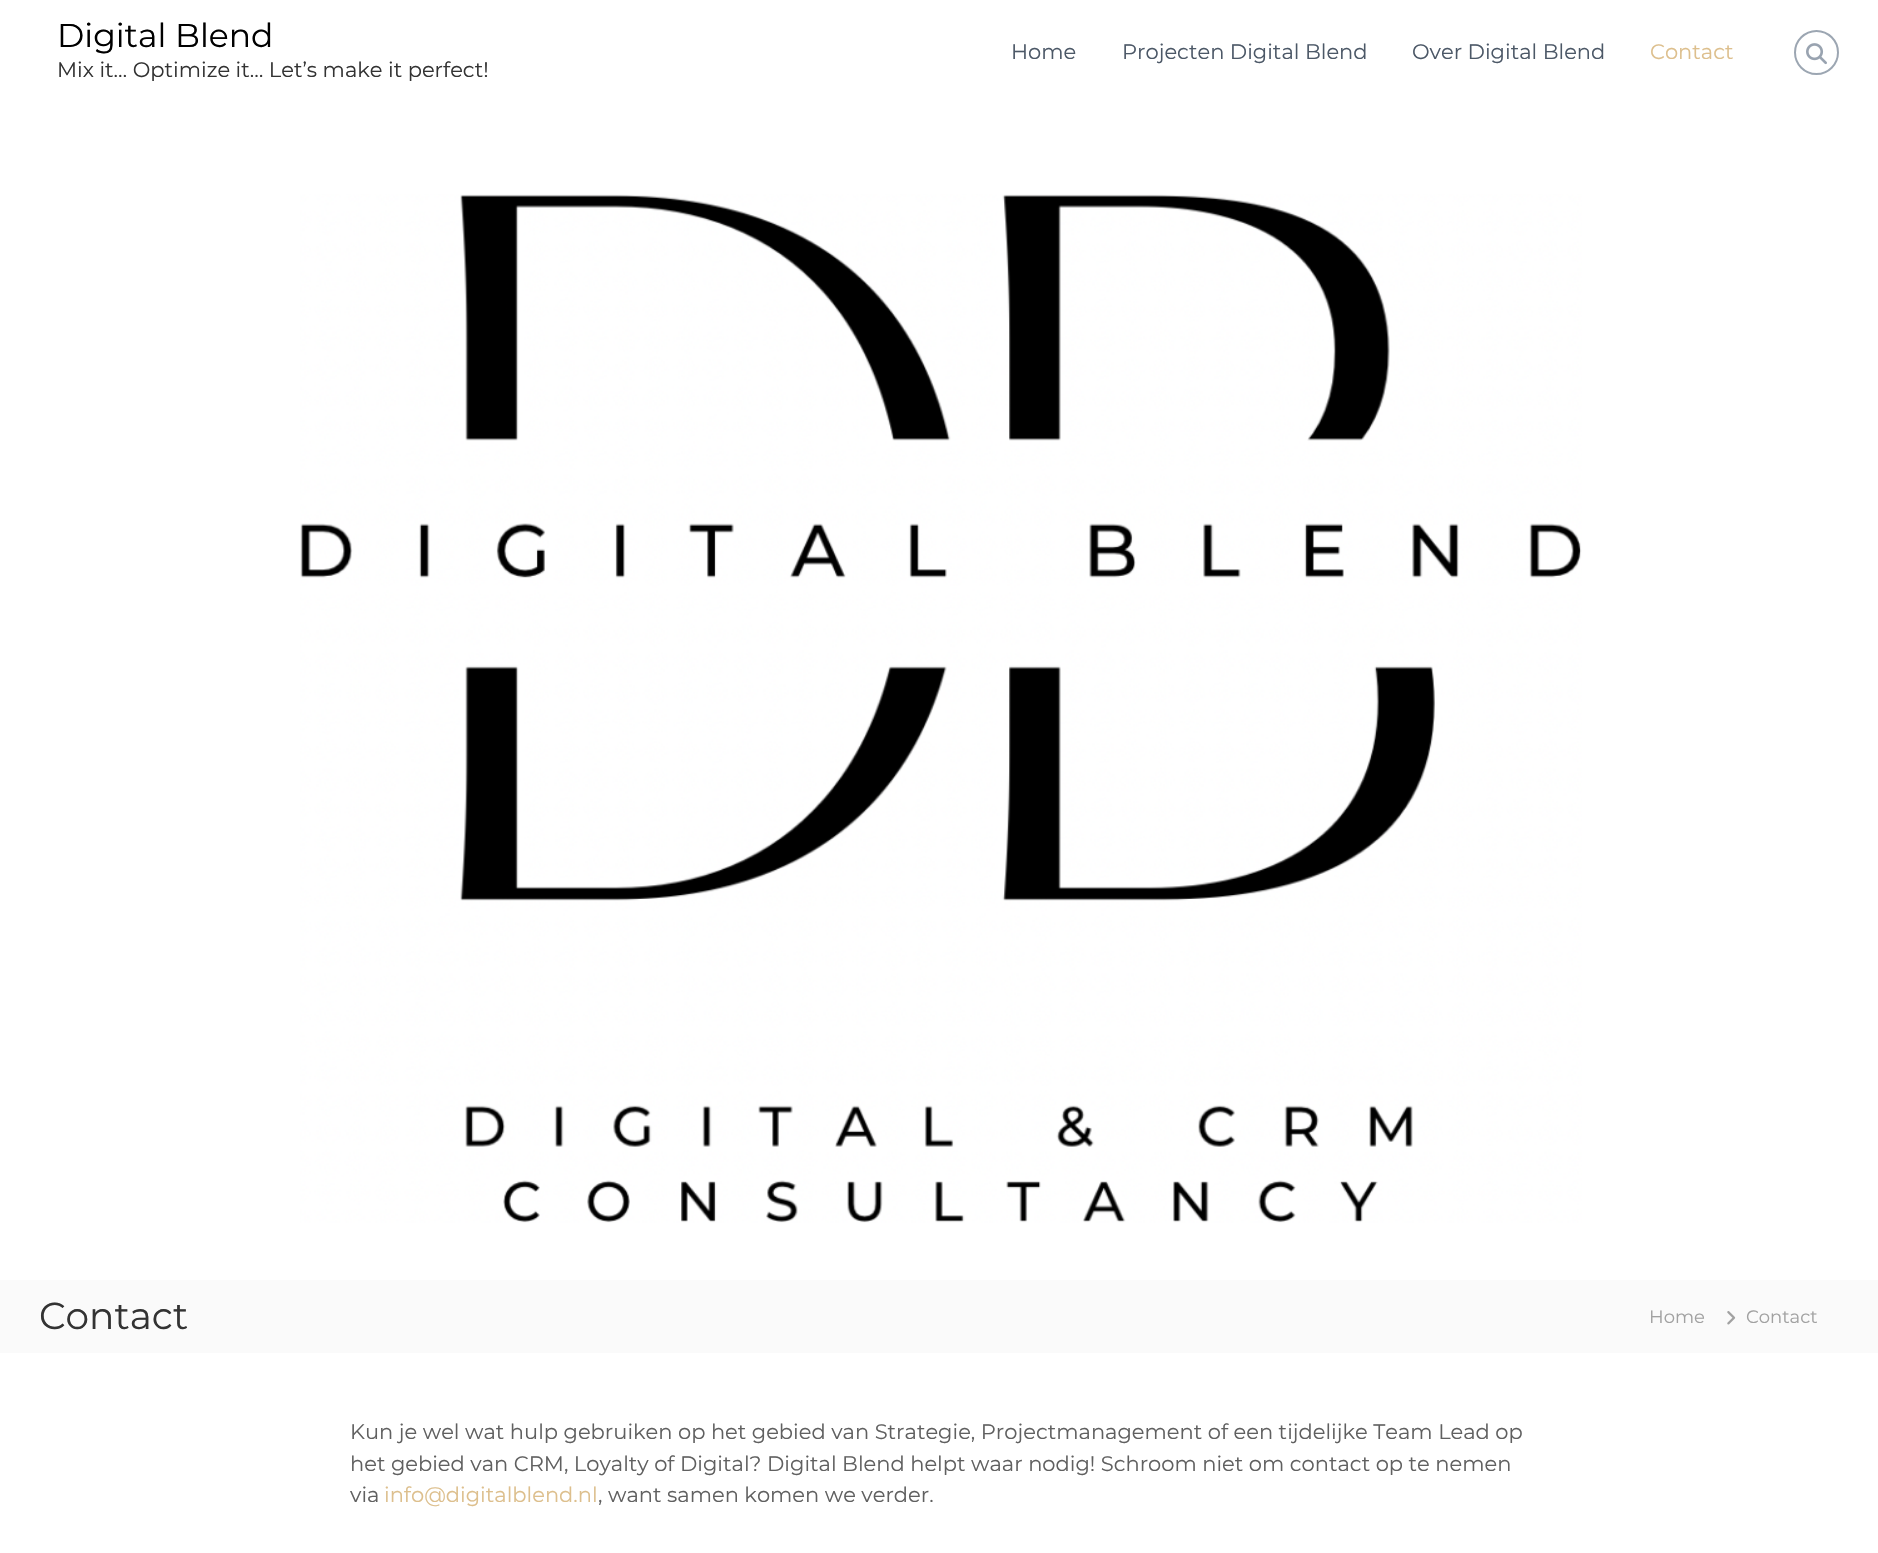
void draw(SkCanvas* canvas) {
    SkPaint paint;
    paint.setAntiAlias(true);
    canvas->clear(0xFFFFFFFF);
    SkFont font1(fontMgr->matchFamilyStyle("Montserrat", SkFontStyle::Normal()), 33);
    font1.setSubpixel(true);
    paint.setColor(0xFF000000);
    canvas->drawString("Digital Blend", 57, 47, font1, paint);
    SkFont font2(fontMgr->matchFamilyStyle("Montserrat", SkFontStyle::Normal()), 21);
    font2.setSubpixel(true);
    paint.setColor(0xFF333333);
    canvas->drawString("Mix it… Optimize it… Let’s make it perfect!", 57, 77, font2, paint);
    paint.setColor(0xFF4C5867);
    canvas->drawString("Home", 1011, 59, font2, paint);
    canvas->drawString("Projecten Digital Blend", 1122, 59, font2, paint);
    canvas->drawString("Over Digital Blend", 1412, 59, font2, paint);
    paint.setColor(0xFFDDBF8D);
    canvas->drawString("Contact", 1650, 59, font2, paint);
    paint.setStyle(SkPaint::kStroke_Style);
    paint.setStrokeWidth(2);
    paint.setColor(0xFF9CA6B2);
    canvas->drawCircle(1816.5f, 52.5f, 21.5f, paint);
    canvas->drawImageRect(SkImages::DeferredFromEncodedData(SkData::MakeFromFileName("img1.png")), SkRect::MakeXYWH(1806, 43, 21, 22), SkSamplingOptions());
    canvas->drawImageRect(SkImages::DeferredFromEncodedData(SkData::MakeFromFileName("img2.png")), SkRect::MakeXYWH(300, 194, 1282, 1029), SkSamplingOptions());
    paint.setStyle(SkPaint::kFill_Style);
    paint.setColor(0xFFFAFAFA);
    canvas->drawRect(SkRect::MakeXYWH(0, 1280, 1878, 73), paint);
    SkFont font3(fontMgr->matchFamilyStyle("Montserrat", SkFontStyle::Normal()), 37.5f);
    font3.setSubpixel(true);
    paint.setColor(0xFF333333);
    canvas->drawString("Contact", 39, 1329, font3, paint);
    SkFont font4(fontMgr->matchFamilyStyle("Montserrat", SkFontStyle::Normal()), 18);
    font4.setSubpixel(true);
    paint.setColor(0xFFA1A1A1);
    canvas->drawString("Home", 1649, 1323, font4, paint);
    canvas->drawImageRect(SkImages::DeferredFromEncodedData(SkData::MakeFromFileName("img3.png")), SkRect::MakeXYWH(1727, 1311, 9, 14), SkSamplingOptions());
    canvas->drawString("Contact", 1746, 1323, font4, paint);
    paint.setColor(0xFF606060);
    canvas->drawString("Kun je wel wat hulp gebruiken op het gebied van Strategie, Projectmanagement of een tijdelijke Team Lead op", 350, 1439, font2, paint);
    canvas->drawString("het gebied van CRM, Loyalty of Digital? Digital Blend helpt waar nodig! Schroom niet om contact op te nemen", 350, 1471, font2, paint);
    canvas->drawString("via", 350, 1502, font2, paint);
    paint.setColor(0xFFDDBF8D);
    canvas->drawString("info@digitalblend.nl", 384, 1502, font2, paint);
    paint.setColor(0xFF606060);
    canvas->drawString(", want samen komen we verder.", 598, 1502, font2, paint);
}
